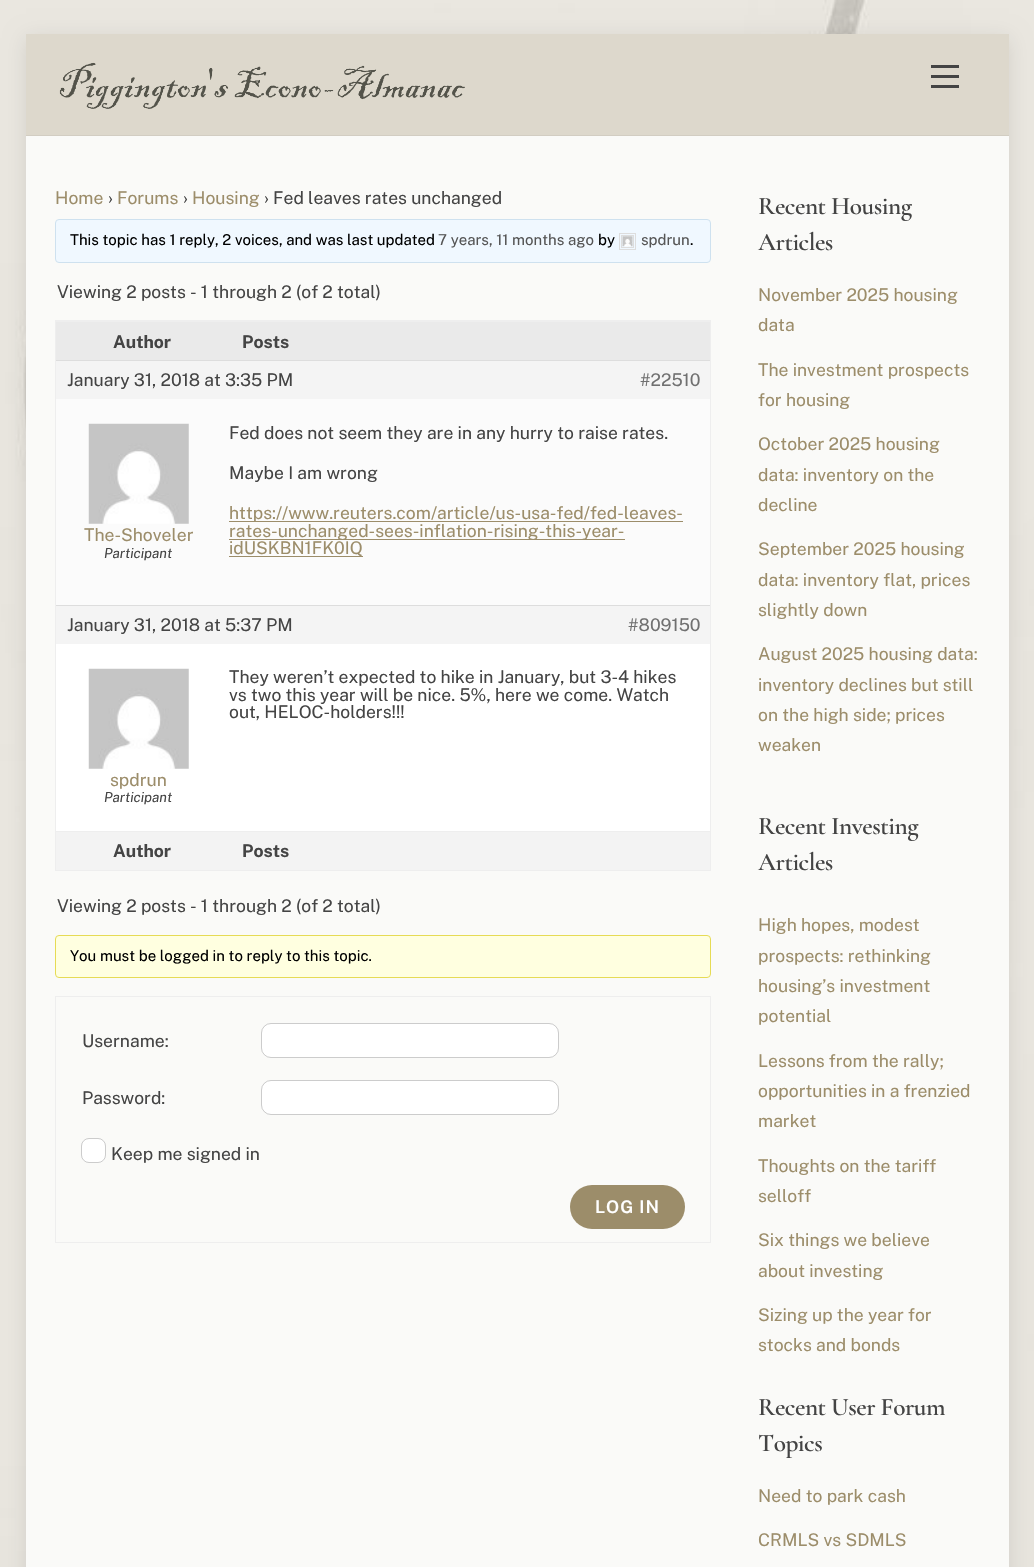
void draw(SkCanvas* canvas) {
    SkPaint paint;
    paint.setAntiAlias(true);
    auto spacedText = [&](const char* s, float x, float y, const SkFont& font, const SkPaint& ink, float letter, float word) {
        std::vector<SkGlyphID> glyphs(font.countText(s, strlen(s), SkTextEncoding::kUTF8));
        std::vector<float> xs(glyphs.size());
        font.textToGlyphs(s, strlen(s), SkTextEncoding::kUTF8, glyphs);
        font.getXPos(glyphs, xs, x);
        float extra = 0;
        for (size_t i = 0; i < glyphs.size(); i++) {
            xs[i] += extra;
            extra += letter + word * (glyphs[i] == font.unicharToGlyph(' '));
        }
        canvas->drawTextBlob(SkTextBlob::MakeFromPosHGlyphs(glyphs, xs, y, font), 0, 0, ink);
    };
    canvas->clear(0xFFFFFFFF);
    canvas->drawImageRect(SkImages::DeferredFromEncodedData(SkData::MakeFromFileName("img1.png")), SkRect::MakeXYWH(0, 0, 1034, 1567), SkSamplingOptions());
    paint.setColor(0x1A000000);
    paint.setMaskFilter(SkMaskFilter::MakeBlur(kNormal_SkBlurStyle, 10));
    canvas->drawRect(SkRect::MakeXYWH(26, 38, 983, 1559), paint);
    paint.setMaskFilter(nullptr);
    paint.setColor(0xFFDDD8CC);
    canvas->drawRect(SkRect::MakeXYWH(26, 34, 983, 101), paint);
    paint.setColor(0xFFD2CDC2);
    canvas->drawRect(SkRect::MakeXYWH(26, 135, 983, 1), paint);
    canvas->drawImageRect(SkImages::DeferredFromEncodedData(SkData::MakeFromFileName("img2.png")), SkRect::MakeXYWH(59, 62, 406, 47), SkSamplingOptions());
    paint.setColor(0xFF444444);
    canvas->drawRect(SkRect::MakeXYWH(931, 85, 28, 3), paint);
    canvas->drawRect(SkRect::MakeXYWH(931, 65, 28, 3), paint);
    canvas->drawRect(SkRect::MakeXYWH(931, 75, 28, 3), paint);
    paint.setColor(0xFFFAFAF8);
    canvas->drawRect(SkRect::MakeXYWH(26, 136, 983, 1431), paint);
    SkFont font1(fontMgr->matchFamilyStyle("Public Sans", SkFontStyle::Normal()), 17.5f);
    font1.setSubpixel(true);
    paint.setColor(0xFF9C8D6A);
    canvas->drawString("Home", 55, 204, font1, paint);
    paint.setColor(0xFF444444);
    canvas->drawString("›", 108, 204, font1, paint);
    paint.setColor(0xFF9C8D6A);
    canvas->drawString("Forums", 117, 204, font1, paint);
    paint.setColor(0xFF444444);
    canvas->drawString("›", 183, 204, font1, paint);
    paint.setColor(0xFF9C8D6A);
    canvas->drawString("Housing", 192, 204, font1, paint);
    paint.setColor(0xFF444444);
    canvas->drawString("› Fed leaves rates unchanged", 264, 204, font1, paint);
    paint.setColor(0xFFF0F8FF);
    canvas->drawRoundRect(SkRect::MakeXYWH(55.5f, 219.5f, 655, 43), 3.5f, 3.5f, paint);
    paint.setStyle(SkPaint::kStroke_Style);
    paint.setStrokeWidth(1);
    paint.setColor(0xFFCEE1EF);
    canvas->drawRoundRect(SkRect::MakeXYWH(55.5f, 219.5f, 655, 43), 3.5f, 3.5f, paint);
    SkFont font2(fontMgr->matchFamilyStyle("Public Sans", SkFontStyle::Normal()), 15);
    font2.setSubpixel(true);
    paint.setStyle(SkPaint::kFill_Style);
    paint.setColor(0xFF000000);
    canvas->drawString("This topic has 1 reply, 2 voices, and was last updated", 70, 245, font2, paint);
    paint.setColor(0xFF555555);
    canvas->drawString("7 years, 11 months ago", 438, 245, font2, paint);
    paint.setColor(0xFF000000);
    canvas->drawString("by", 598, 245, font2, paint);
    paint.setStyle(SkPaint::kStroke_Style);
    paint.setColor(0xFFDDDDDD);
    canvas->drawRect(SkRect::MakeXYWH(619.5f, 233.5f, 16, 16), paint);
    canvas->drawRect(SkRect::MakeXYWH(621.5f, 235.5f, 12, 12), paint);
    canvas->drawImageRect(SkImages::DeferredFromEncodedData(SkData::MakeFromFileName("img3.png")), SkRect::MakeXYWH(622, 236, 11, 11), SkSamplingOptions());
    paint.setStyle(SkPaint::kFill_Style);
    paint.setColor(0xFF555555);
    canvas->drawString("spdrun", 641, 245, font2, paint);
    paint.setColor(0xFF000000);
    canvas->drawString(".", 690, 245, font2, paint);
    paint.setColor(0xFF444444);
    canvas->drawString("Viewing 2 posts - 1 through 2 (of 2 total)", 57, 298, font1, paint);
    paint.setStyle(SkPaint::kStroke_Style);
    paint.setColor(0xFFEEEEEE);
    canvas->drawRect(SkRect::MakeXYWH(55.5f, 320.5f, 655, 550), paint);
    paint.setStyle(SkPaint::kFill_Style);
    paint.setColor(0xFFEAEAEA);
    canvas->drawRect(SkRect::MakeXYWH(56, 322, 654, 38), paint);
    paint.setColor(0xFFEEEEEE);
    canvas->drawRect(SkRect::MakeXYWH(56, 321, 654, 1), paint);
    SkFont font3(fontMgr->matchFamilyStyle("Public Sans", SkFontStyle::Bold()), 17.5f);
    font3.setSubpixel(true);
    paint.setColor(0xFF444444);
    canvas->drawString("Author", 113, 348, font3, paint);
    canvas->drawString("Posts", 242, 348, font3, paint);
    paint.setColor(0xFFF4F4F4);
    canvas->drawRect(SkRect::MakeXYWH(56, 361, 654, 38), paint);
    paint.setColor(0xFFDDDDDD);
    canvas->drawRect(SkRect::MakeXYWH(56, 360, 654, 1), paint);
    paint.setColor(0xFF444444);
    canvas->drawString("January 31, 2018 at 3:35 PM", 67, 386, font1, paint);
    paint.setColor(0xFF707070);
    canvas->drawString("#22510", 640, 386, font1, paint);
    paint.setColor(0xFFFBFBFB);
    canvas->drawRect(SkRect::MakeXYWH(56, 399, 654, 206), paint);
    canvas->drawImageRect(SkImages::DeferredFromEncodedData(SkData::MakeFromFileName("img4.png")), SkRect::MakeXYWH(88, 423, 101, 101), SkSamplingOptions());
    paint.setColor(0xFF9C8D6A);
    canvas->drawString("The-Shoveler", 84, 541, font1, paint);
    SkFont font4(fontMgr->matchFamilyStyle("Public Sans", SkFontStyle::Italic()), 13.75f);
    font4.setSubpixel(true);
    paint.setColor(0xFF444444);
    canvas->drawString("Participant", 104, 558, font4, paint);
    canvas->drawString("Fed does not seem they are in any hurry to raise rates.", 229, 439, font1, paint);
    canvas->drawString("Maybe I am wrong", 229, 479, font1, paint);
    paint.setColor(0xFF9C8D6A);
    canvas->drawRect(SkRect::MakeXYWH(229, 521, 454, 1), paint);
    canvas->drawString("https://www.reuters.com/article/us-usa-fed/fed-leaves-", 229, 519, font1, paint);
    canvas->drawRect(SkRect::MakeXYWH(229, 539, 396, 1), paint);
    canvas->drawString("rates-unchanged-sees-inflation-rising-this-year-", 229, 537, font1, paint);
    canvas->drawRect(SkRect::MakeXYWH(229, 556, 134, 1), paint);
    canvas->drawString("idUSKBN1FK0IQ", 229, 554, font1, paint);
    paint.setColor(0xFFF4F4F4);
    canvas->drawRect(SkRect::MakeXYWH(56, 606, 654, 38), paint);
    paint.setColor(0xFFDDDDDD);
    canvas->drawRect(SkRect::MakeXYWH(56, 605, 654, 1), paint);
    paint.setColor(0xFF444444);
    canvas->drawString("January 31, 2018 at 5:37 PM", 67, 631, font1, paint);
    paint.setColor(0xFF707070);
    canvas->drawString("#809150", 628, 631, font1, paint);
    paint.setColor(0xFFFFFFFF);
    canvas->drawRect(SkRect::MakeXYWH(56, 644, 654, 187), paint);
    paint.setColor(0xFF444444);
    canvas->drawString("They weren’t expected to hike in January, but 3-4 hikes", 229, 683, font1, paint);
    canvas->drawString("vs two this year will be nice. 5%, here we come. Watch", 229, 701, font1, paint);
    canvas->drawString("out, HELOC-holders!!!", 229, 718, font1, paint);
    canvas->drawImageRect(SkImages::DeferredFromEncodedData(SkData::MakeFromFileName("img5.png")), SkRect::MakeXYWH(88, 668, 101, 101), SkSamplingOptions());
    paint.setColor(0xFF9C8D6A);
    canvas->drawString("spdrun", 110, 786, font1, paint);
    paint.setColor(0xFF444444);
    canvas->drawString("Participant", 104, 802, font4, paint);
    paint.setColor(0xFFF3F3F3);
    canvas->drawRect(SkRect::MakeXYWH(56, 832, 654, 38), paint);
    paint.setColor(0xFFEEEEEE);
    canvas->drawRect(SkRect::MakeXYWH(56, 831, 654, 1), paint);
    paint.setColor(0xFF444444);
    canvas->drawString("Author", 113, 857, font3, paint);
    canvas->drawString("Posts", 242, 857, font3, paint);
    canvas->drawString("Viewing 2 posts - 1 through 2 (of 2 total)", 57, 912, font1, paint);
    paint.setColor(0xFFFFFFE0);
    canvas->drawRoundRect(SkRect::MakeXYWH(55.5f, 935.5f, 655, 42), 3.5f, 3.5f, paint);
    paint.setStyle(SkPaint::kStroke_Style);
    paint.setColor(0xFFE6DB55);
    canvas->drawRoundRect(SkRect::MakeXYWH(55.5f, 935.5f, 655, 42), 3.5f, 3.5f, paint);
    paint.setStyle(SkPaint::kFill_Style);
    paint.setColor(0xFF000000);
    canvas->drawString("You must be logged in to reply to this topic.", 70, 961, font2, paint);
    paint.setStyle(SkPaint::kStroke_Style);
    paint.setColor(0xFFEEEEEE);
    canvas->drawRect(SkRect::MakeXYWH(55.5f, 996.5f, 655, 246), paint);
    paint.setStyle(SkPaint::kFill_Style);
    paint.setColor(0xFF444444);
    canvas->drawString("Username:", 82, 1047, font1, paint);
    paint.setColor(0xFFFFFFFF);
    canvas->drawRoundRect(SkRect::MakeXYWH(261, 1023, 298, 35), 10, 10, paint);
    paint.setStyle(SkPaint::kStroke_Style);
    paint.setColor(0x33000000);
    canvas->drawRoundRect(SkRect::MakeXYWH(261.5f, 1023.5f, 297, 34), 9.5f, 9.5f, paint);
    paint.setStyle(SkPaint::kFill_Style);
    paint.setColor(0xFF444444);
    canvas->drawString("Password:", 82, 1104, font1, paint);
    paint.setColor(0xFFFFFFFF);
    canvas->drawRoundRect(SkRect::MakeXYWH(261, 1080, 298, 35), 10, 10, paint);
    paint.setStyle(SkPaint::kStroke_Style);
    paint.setColor(0x33000000);
    canvas->drawRoundRect(SkRect::MakeXYWH(261.5f, 1080.5f, 297, 34), 9.5f, 9.5f, paint);
    paint.setStyle(SkPaint::kFill_Style);
    paint.setColor(0xFFFFFFFF);
    canvas->drawRoundRect(SkRect::MakeXYWH(81, 1138, 25, 25), 8, 8, paint);
    paint.setStyle(SkPaint::kStroke_Style);
    paint.setColor(0x33000000);
    canvas->drawRoundRect(SkRect::MakeXYWH(81.5f, 1138.5f, 24, 24), 7.5f, 7.5f, paint);
    paint.setStyle(SkPaint::kFill_Style);
    paint.setColor(0xFF444444);
    canvas->drawString("Keep me signed in", 111, 1160, font1, paint);
    paint.setColor(0xFF9C8D6A);
    canvas->drawRoundRect(SkRect::MakeXYWH(570, 1185, 115, 44), 22, 22, paint);
    SkFont font5(fontMgr->matchFamilyStyle("Public Sans", SkFontStyle(600, SkFontStyle::kNormal_Width, SkFontStyle::kUpright_Slant)), 17.5f);
    font5.setSubpixel(true);
    paint.setColor(0xFFFFFFFF);
    spacedText("LOG IN", 595, 1213, font5, paint, 1, 0);
    SkFont font6(fontMgr->matchFamilyStyle("Cormorant Garamond", SkFontStyle(600, SkFontStyle::kNormal_Width, SkFontStyle::kUpright_Slant)), 25.25f);
    font6.setSubpixel(true);
    paint.setColor(0xFF444444);
    spacedText("Recent Housing", 758, 214, font6, paint, -0.5f, 0);
    spacedText("Articles", 758, 250, font6, paint, -0.5f, 0);
    paint.setColor(0xFF9C8D6A);
    canvas->drawString("November 2025 housing", 758, 301, font1, paint);
    canvas->drawString("data", 758, 331, font1, paint);
    canvas->drawString("The investment prospects", 758, 376, font1, paint);
    canvas->drawString("for housing", 758, 406, font1, paint);
    canvas->drawString("October 2025 housing", 758, 450, font1, paint);
    canvas->drawString("data: inventory on the", 758, 481, font1, paint);
    canvas->drawString("decline", 758, 511, font1, paint);
    canvas->drawString("September 2025 housing", 758, 555, font1, paint);
    canvas->drawString("data: inventory flat, prices", 758, 586, font1, paint);
    canvas->drawString("slightly down", 758, 616, font1, paint);
    canvas->drawString("August 2025 housing data:", 758, 660, font1, paint);
    canvas->drawString("inventory declines but still", 758, 691, font1, paint);
    canvas->drawString("on the high side; prices", 758, 721, font1, paint);
    canvas->drawString("weaken", 758, 751, font1, paint);
    paint.setColor(0xFF444444);
    spacedText("Recent Investing", 758, 834, font6, paint, -0.5f, 0);
    spacedText("Articles", 758, 870, font6, paint, -0.5f, 0);
    paint.setColor(0xFF9C8D6A);
    canvas->drawString("High hopes, modest", 758, 931, font1, paint);
    canvas->drawString("prospects: rethinking", 758, 962, font1, paint);
    canvas->drawString("housing’s investment", 758, 992, font1, paint);
    canvas->drawString("potential", 758, 1022, font1, paint);
    canvas->drawString("Lessons from the rally;", 758, 1067, font1, paint);
    canvas->drawString("opportunities in a frenzied", 758, 1097, font1, paint);
    canvas->drawString("market", 758, 1127, font1, paint);
    canvas->drawString("Thoughts on the tariff", 758, 1172, font1, paint);
    canvas->drawString("selloff", 758, 1202, font1, paint);
    canvas->drawString("Six things we believe", 758, 1246, font1, paint);
    canvas->drawString("about investing", 758, 1277, font1, paint);
    canvas->drawString("Sizing up the year for", 758, 1321, font1, paint);
    canvas->drawString("stocks and bonds", 758, 1351, font1, paint);
    paint.setColor(0xFF444444);
    spacedText("Recent User Forum", 758, 1415, font6, paint, -0.5f, 0);
    spacedText("Topics", 758, 1451, font6, paint, -0.5f, 0);
    paint.setColor(0xFF9C8D6A);
    canvas->drawString("Need to park cash", 758, 1502, font1, paint);
    canvas->drawString("CRMLS vs SDMLS", 758, 1546, font1, paint);
}
